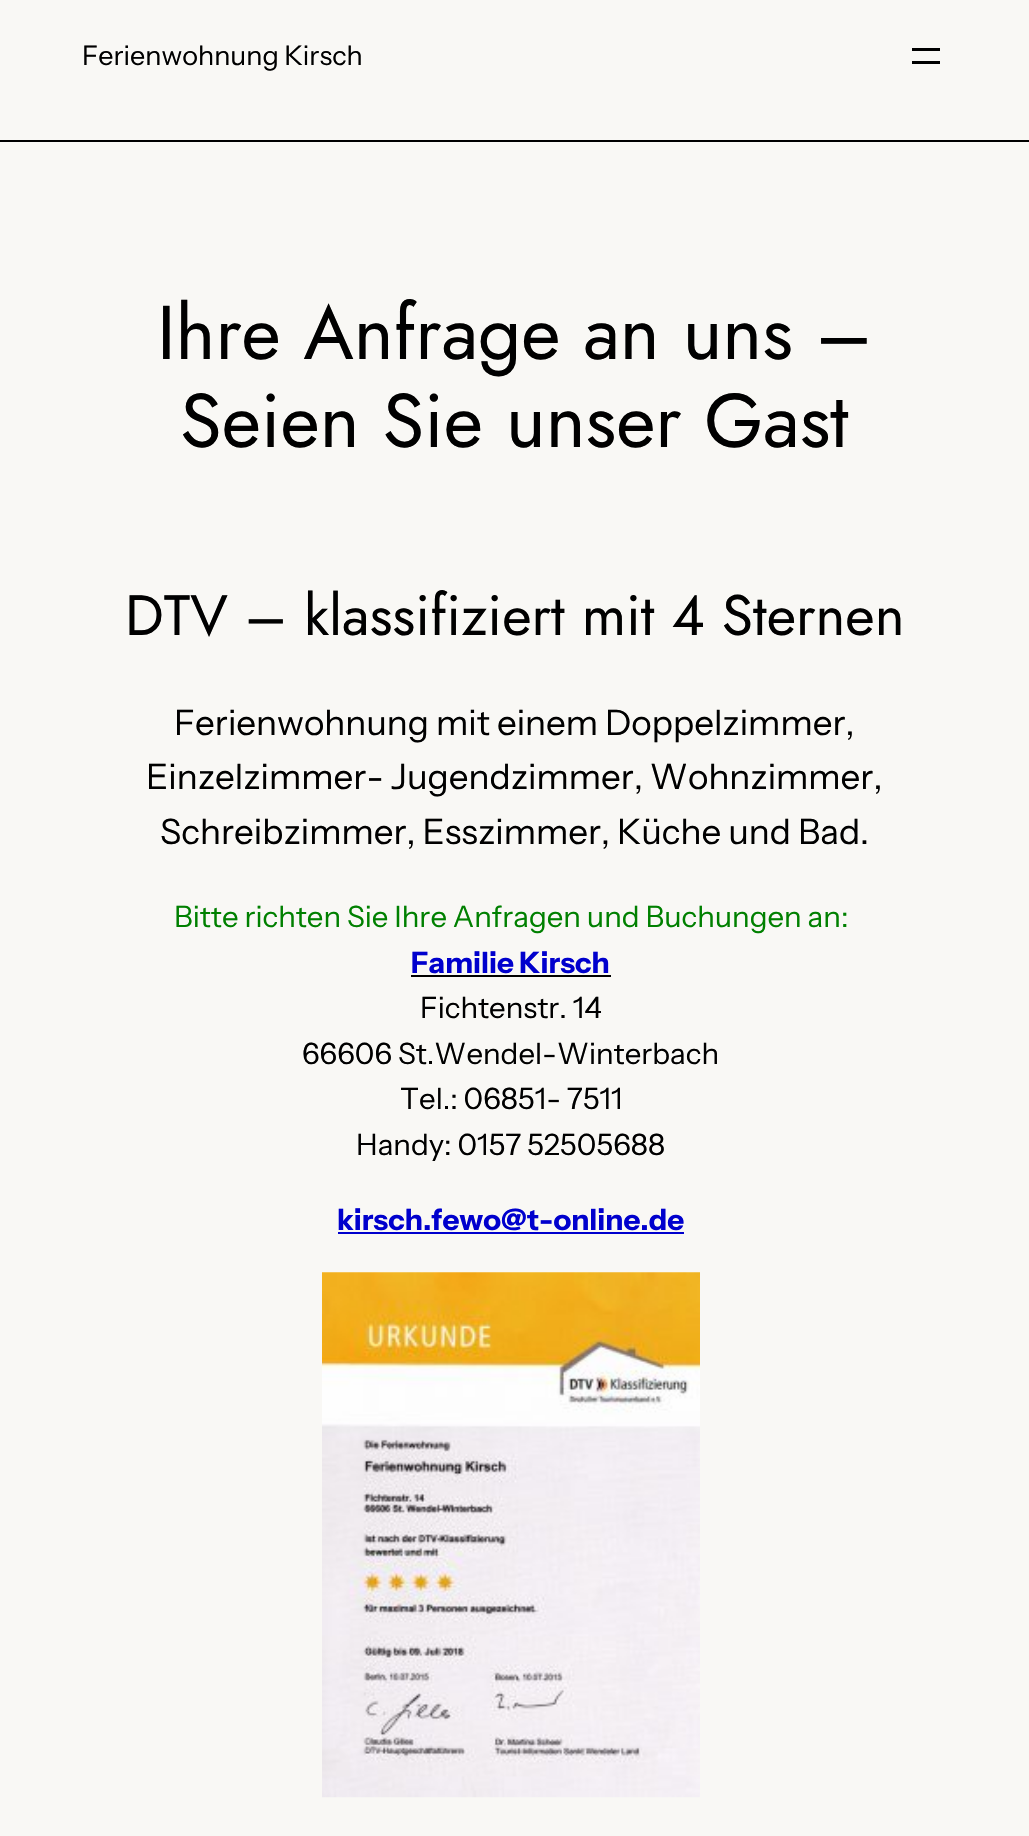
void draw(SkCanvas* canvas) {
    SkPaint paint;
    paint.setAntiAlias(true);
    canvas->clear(0xFFF9F8F5);
    SkFont font1(fontMgr->matchFamilyStyle("Instrument Sans", SkFontStyle::Normal()), 27);
    font1.setSubpixel(true);
    paint.setColor(0xFF000000);
    canvas->drawString("Ferienwohnung Kirsch", 82, 65, font1, paint);
    canvas->drawRect(SkRect::MakeXYWH(912, 48, 28, 3), paint);
    canvas->drawRect(SkRect::MakeXYWH(912, 61, 28, 3), paint);
    canvas->drawRect(SkRect::MakeXYWH(0, 140, 1029, 2), paint);
    SkFont font2(fontMgr->matchFamilyStyle("Jost", SkFontStyle::Normal()), 76);
    font2.setSubpixel(true);
    canvas->drawString("Ihre Anfrage an uns –", 157, 359, font2, paint);
    canvas->drawString("Seien Sie unser Gast", 180, 447, font2, paint);
    SkFont font3(fontMgr->matchFamilyStyle("Jost", SkFontStyle::Normal()), 56.9f);
    font3.setSubpixel(true);
    canvas->drawString("DTV – klassifiziert mit 4 Sternen", 125, 635, font3, paint);
    SkFont font4(fontMgr->matchFamilyStyle("Instrument Sans", SkFontStyle::Normal()), 35);
    font4.setSubpixel(true);
    canvas->drawString("Ferienwohnung mit einem Doppelzimmer,", 174, 735, font4, paint);
    canvas->drawString("Einzelzimmer- Jugendzimmer, Wohnzimmer,", 146, 789, font4, paint);
    canvas->drawString("Schreibzimmer, Esszimmer, Küche und Bad.", 160, 844, font4, paint);
    SkFont font5(fontMgr->matchFamilyStyle("Instrument Sans", SkFontStyle::Normal()), 29.4f);
    font5.setSubpixel(true);
    paint.setColor(0xFF008000);
    canvas->drawString("Bitte richten Sie Ihre Anfragen und Buchungen an:", 174, 927, font5, paint);
    SkFont font6(fontMgr->matchFamilyStyle("Instrument Sans", SkFontStyle::Bold()), 29.4f);
    font6.setSubpixel(true);
    paint.setColor(0xFF0000CD);
    canvas->drawString("Familie Kirsch", 411, 973, font6, paint);
    paint.setColor(0xFF000000);
    canvas->drawRect(SkRect::MakeXYWH(411, 975, 200, 2), paint);
    canvas->drawString("Fichtenstr. 14", 420, 1018, font5, paint);
    canvas->drawString("66606 St.Wendel-Winterbach", 302, 1064, font5, paint);
    canvas->drawString("Tel.: 06851- 7511", 400, 1109, font5, paint);
    canvas->drawString("Handy: 0157 52505688", 356, 1155, font5, paint);
    paint.setColor(0xFF0000CD);
    canvas->drawString("kirsch.fewo@t-online.de", 337, 1230, font6, paint);
    canvas->drawRect(SkRect::MakeXYWH(338, 1232, 346, 2), paint);
    canvas->drawImageRect(SkImages::DeferredFromEncodedData(SkData::MakeFromFileName("img1.png")), SkRect::MakeXYWH(322, 1272, 378, 526), SkSamplingOptions());
}
